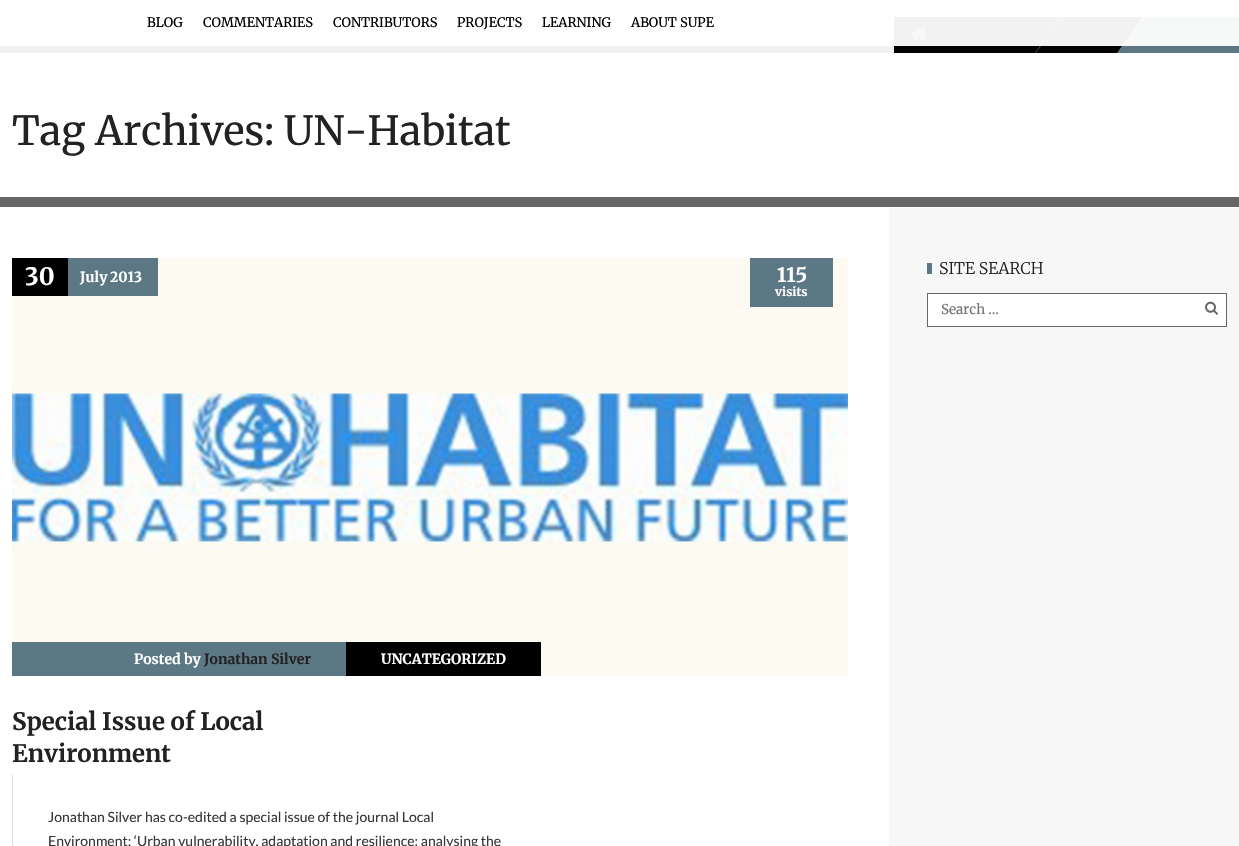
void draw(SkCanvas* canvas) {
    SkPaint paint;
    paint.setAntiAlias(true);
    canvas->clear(0xFFF1F1F1);
    paint.setColor(0xFF000000);
    canvas->drawRect(SkRect::MakeXYWH(894, 17, 248, 36), paint);
    canvas->drawImageRect(SkImages::DeferredFromEncodedData(SkData::MakeFromFileName("img1.png")), SkRect::MakeXYWH(911, 27, 17, 13), SkSamplingOptions());
    paint.setColor(0xFF4D4D4D);
    canvas->drawPath(SkPathBuilder().moveTo(1060.5f, 17).lineTo(1061.5f, 17).lineTo(1036, 53).lineTo(1035, 53).close().detach(), paint);
    paint.setColor(0xFF5C7885);
    canvas->drawRect(SkRect::MakeXYWH(1147, 17, 92, 36), paint);
    canvas->drawPath(SkPathBuilder().moveTo(1142, 17).lineTo(1172, 17).lineTo(1147, 53).lineTo(1117, 53).close().detach(), paint);
    paint.setColor(0xF2FFFFFF);
    canvas->drawRect(SkRect::MakeXYWH(0, 0, 1239, 46), paint);
    SkFont font1(fontMgr->matchFamilyStyle("Merriweather", SkFontStyle(300, SkFontStyle::kNormal_Width, SkFontStyle::kUpright_Slant)), 13);
    font1.setSubpixel(true);
    paint.setColor(0xFF000000);
    canvas->drawString("BLOG", 147, 27, font1, paint);
    canvas->drawString("COMMENTARIES", 203, 27, font1, paint);
    canvas->drawString("CONTRIBUTORS", 333, 27, font1, paint);
    canvas->drawString("PROJECTS", 457, 27, font1, paint);
    canvas->drawString("LEARNING", 542, 27, font1, paint);
    canvas->drawString("ABOUT SUPE", 631, 27, font1, paint);
    paint.setColor(0xFFFFFFFF);
    canvas->drawRect(SkRect::MakeXYWH(0, 53, 1239, 793), paint);
    paint.setColor(0xFF666666);
    canvas->drawRect(SkRect::MakeXYWH(0, 197, 1239, 10), paint);
    SkFont font2(fontMgr->matchFamilyStyle("Merriweather", SkFontStyle(300, SkFontStyle::kNormal_Width, SkFontStyle::kUpright_Slant)), 40);
    font2.setSubpixel(true);
    paint.setColor(0xFF222222);
    canvas->drawString("Tag Archives: UN-Habitat", 12, 145, font2, paint);
    canvas->drawImageRect(SkImages::DeferredFromEncodedData(SkData::MakeFromFileName("img2.png")), SkRect::MakeXYWH(12, 258, 836, 418), SkSamplingOptions());
    paint.setColor(0xFF5C7885);
    canvas->drawRect(SkRect::MakeXYWH(68, 258, 90, 38), paint);
    paint.setColor(0xFF000000);
    canvas->drawRect(SkRect::MakeXYWH(12, 258, 56, 38), paint);
    SkFont font3(fontMgr->matchFamilyStyle("Merriweather", SkFontStyle::Bold()), 24);
    font3.setSubpixel(true);
    paint.setColor(0xFFFFFFFF);
    canvas->drawString("30", 25, 285, font3, paint);
    SkFont font4(fontMgr->matchFamilyStyle("Merriweather", SkFontStyle::Bold()), 14);
    font4.setSubpixel(true);
    canvas->drawString("July", 80, 282, font4, paint);
    canvas->drawString("2013", 110, 282, font4, paint);
    paint.setColor(0xFF5C7885);
    canvas->drawRect(SkRect::MakeXYWH(750, 258, 83, 49), paint);
    SkFont font5(fontMgr->matchFamilyStyle("Merriweather", SkFontStyle::Bold()), 20);
    font5.setSubpixel(true);
    paint.setColor(0xFFFFFFFF);
    canvas->drawString("115", 777, 282, font5, paint);
    SkFont font6(fontMgr->matchFamilyStyle("Merriweather", SkFontStyle::Bold()), 12);
    font6.setSubpixel(true);
    canvas->drawString("visits", 775, 296, font6, paint);
    paint.setColor(0xFF5C7885);
    canvas->drawRect(SkRect::MakeXYWH(12, 642, 334, 34), paint);
    paint.setColor(0xFFFFFFFF);
    canvas->drawString("Posted by", 134, 664, font4, paint);
    paint.setColor(0xFF222222);
    canvas->drawString("Jonathan Silver", 204, 664, font4, paint);
    paint.setColor(0xFF000000);
    canvas->drawRect(SkRect::MakeXYWH(346, 642, 195, 34), paint);
    paint.setColor(0xFFFFFFFF);
    canvas->drawString("UNCATEGORIZED", 381, 664, font4, paint);
    paint.setColor(0xFF222222);
    canvas->drawString("Special Issue of Local", 12, 730, font3, paint);
    canvas->drawString("Environment", 12, 762, font3, paint);
    paint.setColor(0xFFDDDDDD);
    canvas->drawRect(SkRect::MakeXYWH(12, 775, 1, 71), paint);
    SkFont font7(fontMgr->matchFamilyStyle("Lato", SkFontStyle::Normal()), 14);
    font7.setSubpixel(true);
    paint.setColor(0xFF363636);
    canvas->drawString("Jonathan Silver has co-edited a special issue of the journal Local", 48, 822, font7, paint);
    canvas->drawString("Environment: ‘Urban vulnerability, adaptation and resilience: analysing the", 48, 846, font7, paint);
    paint.setColor(0xFFF7F7F7);
    canvas->drawRect(SkRect::MakeXYWH(889, 208, 350, 638), paint);
    paint.setColor(0xFF5C7885);
    canvas->drawRect(SkRect::MakeXYWH(927, 263, 5, 11), paint);
    SkFont font8(fontMgr->matchFamilyStyle("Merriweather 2", SkFontStyle(300, SkFontStyle::kNormal_Width, SkFontStyle::kUpright_Slant)), 16);
    font8.setSubpixel(true);
    paint.setColor(0xFF222222);
    canvas->drawString("SITE SEARCH", 939, 274, font8, paint);
    paint.setColor(0xFFFFFFFF);
    canvas->drawRect(SkRect::MakeXYWH(927.5f, 293.5f, 299, 33), paint);
    paint.setStyle(SkPaint::kStroke_Style);
    paint.setStrokeWidth(1);
    paint.setColor(0xFF666666);
    canvas->drawRect(SkRect::MakeXYWH(927.5f, 293.5f, 299, 33), paint);
    SkFont font9(fontMgr->matchFamilyStyle("Merriweather", SkFontStyle(300, SkFontStyle::kNormal_Width, SkFontStyle::kUpright_Slant)), 13.5f);
    font9.setSubpixel(true);
    paint.setStyle(SkPaint::kFill_Style);
    paint.setColor(0xFF757575);
    canvas->drawString("Search …", 941, 314, font9, paint);
    canvas->drawImageRect(SkImages::DeferredFromEncodedData(SkData::MakeFromFileName("img3.png")), SkRect::MakeXYWH(1205, 301, 13, 14), SkSamplingOptions());
}
